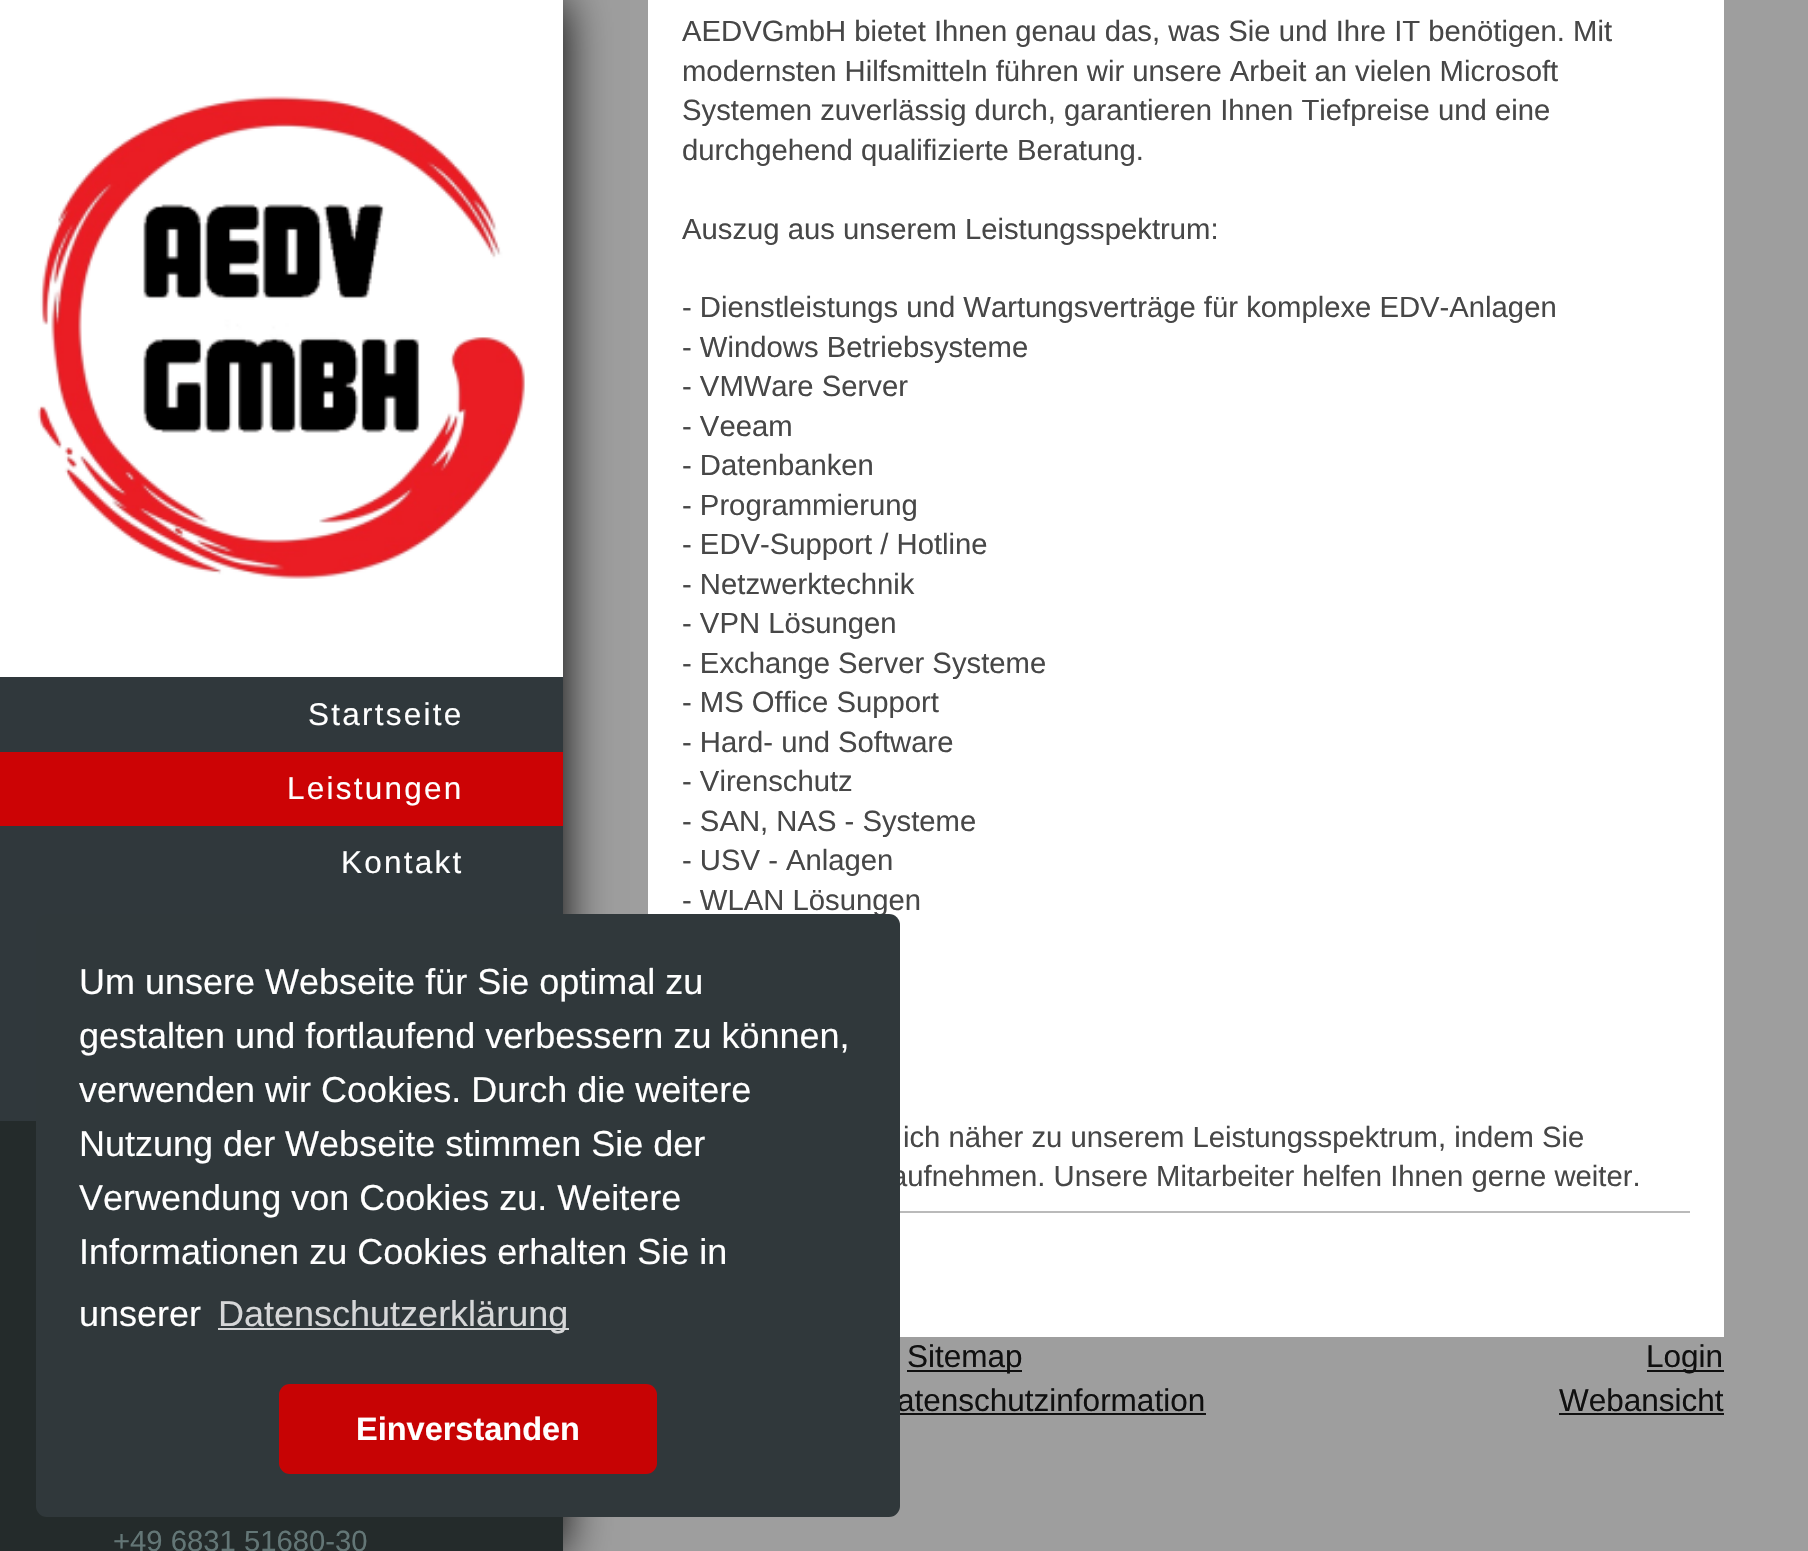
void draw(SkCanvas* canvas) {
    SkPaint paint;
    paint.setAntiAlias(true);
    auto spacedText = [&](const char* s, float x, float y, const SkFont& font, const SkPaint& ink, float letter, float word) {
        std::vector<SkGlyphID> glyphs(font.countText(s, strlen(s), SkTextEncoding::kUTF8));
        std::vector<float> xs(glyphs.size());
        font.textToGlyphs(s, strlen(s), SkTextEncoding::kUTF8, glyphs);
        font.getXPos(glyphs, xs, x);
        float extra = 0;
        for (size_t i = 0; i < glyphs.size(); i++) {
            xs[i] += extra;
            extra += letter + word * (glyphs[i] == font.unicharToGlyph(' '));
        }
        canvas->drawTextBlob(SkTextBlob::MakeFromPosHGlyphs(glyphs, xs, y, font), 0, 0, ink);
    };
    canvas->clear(0xFF9E9E9E);
    paint.setColor(0xFF000000);
    paint.setMaskFilter(SkMaskFilter::MakeBlur(kNormal_SkBlurStyle, 22.5f));
    canvas->drawRect(SkRect::MakeXYWH(0, 0, 563, 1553), paint);
    paint.setMaskFilter(nullptr);
    paint.setColor(0xFF242B2B);
    canvas->drawRect(SkRect::MakeXYWH(0, 1121, 563, 430), paint);
    paint.setColor(0xFFFFFFFF);
    canvas->drawRect(SkRect::MakeXYWH(648, 0, 1076, 1337), paint);
    SkFont font1(fontMgr->matchFamilyStyle("Liberation Sans", SkFontStyle::Normal()), 29.25f);
    font1.setSubpixel(true);
    paint.setColor(0xFF474747);
    canvas->drawString("AEDVGmbH bietet Ihnen genau das, was Sie und Ihre IT benötigen. Mit", 682, 41, font1, paint);
    canvas->drawString("modernsten Hilfsmitteln führen wir unsere Arbeit an vielen Microsoft", 682, 81, font1, paint);
    canvas->drawString("Systemen zuverlässig durch, garantieren Ihnen Tiefpreise und eine", 682, 120, font1, paint);
    canvas->drawString("durchgehend qualifizierte Beratung.", 682, 160, font1, paint);
    canvas->drawString("Auszug aus unserem Leistungsspektrum:", 682, 239, font1, paint);
    canvas->drawString("- Dienstleistungs und Wartungsverträge für komplexe EDV-Anlagen", 682, 317, font1, paint);
    canvas->drawString("- Windows Betriebsysteme", 682, 357, font1, paint);
    canvas->drawString("- VMWare Server", 682, 396, font1, paint);
    canvas->drawString("- Veeam", 682, 436, font1, paint);
    canvas->drawString("- Datenbanken", 682, 475, font1, paint);
    canvas->drawString("- Programmierung", 682, 515, font1, paint);
    canvas->drawString("- EDV-Support / Hotline", 682, 554, font1, paint);
    canvas->drawString("- Netzwerktechnik", 682, 594, font1, paint);
    canvas->drawString("- VPN Lösungen", 682, 633, font1, paint);
    canvas->drawString("- Exchange Server Systeme", 682, 673, font1, paint);
    canvas->drawString("- MS Office Support", 682, 712, font1, paint);
    canvas->drawString("- Hard- und Software", 682, 752, font1, paint);
    canvas->drawString("- Virenschutz", 682, 791, font1, paint);
    canvas->drawString("- SAN, NAS - Systeme", 682, 831, font1, paint);
    canvas->drawString("- USV - Anlagen", 682, 870, font1, paint);
    canvas->drawString("- WLAN Lösungen", 682, 910, font1, paint);
    canvas->drawString("ich näher zu unserem Leistungsspektrum, indem Sie", 903, 1147, font1, paint);
    canvas->drawString("aufnehmen. Unsere Mitarbeiter helfen Ihnen gerne weiter.", 891, 1186, font1, paint);
    paint.setColor(0xFFBABABA);
    canvas->drawRect(SkRect::MakeXYWH(900, 1211, 790, 2), paint);
    paint.setColor(0xFF101010);
    canvas->drawRect(SkRect::MakeXYWH(907, 1370, 115, 2), paint);
    SkFont font2(fontMgr->matchFamilyStyle("Liberation Sans", SkFontStyle::Normal()), 31.5f);
    font2.setSubpixel(true);
    canvas->drawString("Sitemap", 907, 1367, font2, paint);
    canvas->drawString("atenschutzinformation", 897, 1411, font2, paint);
    canvas->drawRect(SkRect::MakeXYWH(900, 1413, 306, 2), paint);
    canvas->drawRect(SkRect::MakeXYWH(1647, 1370, 77, 2), paint);
    canvas->drawString("Login", 1646, 1367, font2, paint);
    canvas->drawString("Webansicht", 1559, 1411, font2, paint);
    canvas->drawRect(SkRect::MakeXYWH(1559, 1413, 165, 2), paint);
    paint.setColor(0xFFFFFFFF);
    canvas->drawRect(SkRect::MakeXYWH(0, 0, 563, 677), paint);
    canvas->drawImageRect(SkImages::DeferredFromEncodedData(SkData::MakeFromFileName("img1.png")), SkRect::MakeXYWH(37, 96, 488, 483), SkSamplingOptions());
    paint.setColor(0xFF30383C);
    canvas->drawRect(SkRect::MakeXYWH(0, 677, 563, 444), paint);
    paint.setColor(0xFFFFFFFF);
    spacedText("Startseite", 308, 725, font2, paint, 2.25f, 0);
    paint.setColor(0xFFCC0305);
    canvas->drawRect(SkRect::MakeXYWH(0, 752, 563, 74), paint);
    paint.setColor(0xFFFFFFFF);
    spacedText("Leistungen", 287, 799, font2, paint, 2.25f, 0);
    spacedText("Kontakt", 341, 873, font2, paint, 2.25f, 0);
    paint.setColor(0xFF637676);
    canvas->drawString("+49 6831 51680-30", 113, 1551, font1, paint);
    paint.setColor(0xFF30383B);
    canvas->drawRoundRect(SkRect::MakeXYWH(36, 914, 864, 603), 11, 11, paint);
    SkFont font3(fontMgr->matchFamilyStyle("Liberation Sans", SkFontStyle::Normal()), 36);
    font3.setSubpixel(true);
    paint.setColor(0xFFFFFFFF);
    canvas->drawString("Um unsere Webseite für Sie optimal zu", 79, 994, font3, paint);
    canvas->drawString("gestalten und fortlaufend verbessern zu können,", 79, 1048, font3, paint);
    canvas->drawString("verwenden wir Cookies. Durch die weitere", 79, 1102, font3, paint);
    canvas->drawString("Nutzung der Webseite stimmen Sie der", 79, 1156, font3, paint);
    canvas->drawString("Verwendung von Cookies zu. Weitere", 79, 1210, font3, paint);
    canvas->drawString("Informationen zu Cookies erhalten Sie in", 79, 1264, font3, paint);
    canvas->drawString("unserer", 79, 1326, font3, paint);
    paint.setColor(0xFFD6D7D8);
    canvas->drawRect(SkRect::MakeXYWH(218, 1328, 351, 2), paint);
    canvas->drawString("Datenschutzerklärung", 218, 1326, font3, paint);
    paint.setColor(0xFFC70304);
    canvas->drawRoundRect(SkRect::MakeXYWH(279, 1384, 378, 90), 11, 11, paint);
    SkFont font4(fontMgr->matchFamilyStyle("Liberation Sans", SkFontStyle::Bold()), 32.5f);
    font4.setSubpixel(true);
    paint.setColor(0xFFFFFFFF);
    canvas->drawString("Einverstanden", 356, 1440, font4, paint);
}
